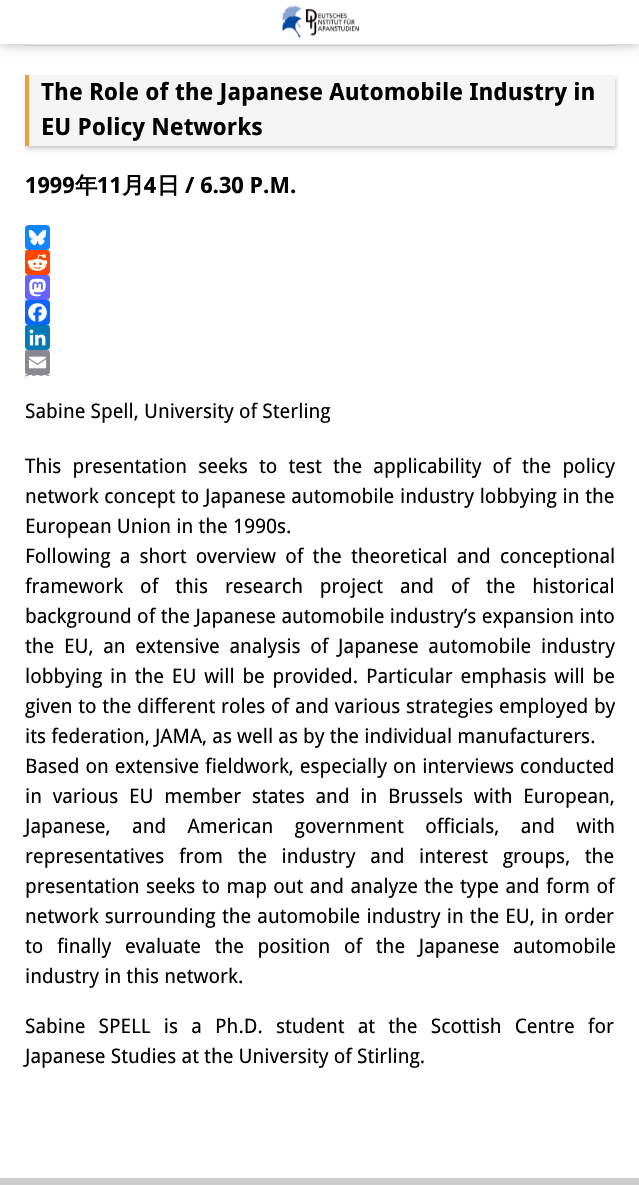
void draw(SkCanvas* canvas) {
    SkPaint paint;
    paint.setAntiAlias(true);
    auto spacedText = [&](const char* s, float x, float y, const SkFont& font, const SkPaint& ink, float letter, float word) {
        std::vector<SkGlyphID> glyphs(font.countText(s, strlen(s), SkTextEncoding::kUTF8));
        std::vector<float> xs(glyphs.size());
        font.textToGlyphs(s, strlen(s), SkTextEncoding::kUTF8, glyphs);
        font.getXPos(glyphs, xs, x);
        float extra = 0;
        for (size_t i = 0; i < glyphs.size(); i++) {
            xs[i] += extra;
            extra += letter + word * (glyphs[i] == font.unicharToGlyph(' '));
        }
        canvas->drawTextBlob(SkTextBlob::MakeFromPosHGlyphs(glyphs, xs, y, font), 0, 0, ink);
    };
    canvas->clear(0xFFFFFFFF);
    paint.setColor(0xFFE6E6E6);
    canvas->drawRect(SkRect::MakeXYWH(25, 45, 590, 1), paint);
    paint.setColor(0x4D000000);
    paint.setMaskFilter(SkMaskFilter::MakeBlur(kNormal_SkBlurStyle, 6));
    canvas->drawRect(SkRect::MakeXYWH(0, 0, 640, 44), paint);
    paint.setMaskFilter(nullptr);
    paint.setColor(0xFFFFFFFF);
    canvas->drawRect(SkRect::MakeXYWH(0, 0, 639, 44), paint);
    canvas->drawImageRect(SkImages::DeferredFromEncodedData(SkData::MakeFromFileName("img1.png")), SkRect::MakeXYWH(282, 6, 77, 33), SkSamplingOptions());
    paint.setColor(0xFFCCCCCC);
    paint.setMaskFilter(SkMaskFilter::MakeBlur(kNormal_SkBlurStyle, 2));
    canvas->drawRect(SkRect::MakeXYWH(26, 78, 590, 71), paint);
    paint.setMaskFilter(nullptr);
    paint.setColor(0xFFF5F5F5);
    canvas->drawRect(SkRect::MakeXYWH(29, 75, 586, 71), paint);
    paint.setColor(0xFFED9F45);
    canvas->drawRect(SkRect::MakeXYWH(25, 75, 4, 71), paint);
    SkFont font1(fontMgr->matchFamilyStyle("Droid Sans", SkFontStyle::Bold()), 23.75f);
    font1.setSubpixel(true);
    paint.setColor(0xFF000000);
    canvas->drawString("The Role of the Japanese Automobile Industry in", 41, 100, font1, paint);
    canvas->drawString("EU Policy Networks", 41, 135, font1, paint);
    SkFont font2(fontMgr->matchFamilyStyle("Droid Sans", SkFontStyle::Bold()), 22.5f);
    font2.setSubpixel(true);
    canvas->drawString("1999", 25, 193, font2, paint);
    SkFont font3(fontMgr->matchFamilyStyle("WenQuanYi Zen Hei", SkFontStyle::Bold()), 22.5f);
    font3.setSubpixel(true);
    canvas->drawString("年", 75, 193, font3, paint);
    canvas->drawString("11", 97, 193, font2, paint);
    canvas->drawString("月", 122, 193, font3, paint);
    canvas->drawString("4", 144, 193, font2, paint);
    canvas->drawString("日", 157, 193, font3, paint);
    canvas->drawString("/ 6.30 P.M.", 185, 193, font2, paint);
    paint.setStyle(SkPaint::kStroke_Style);
    paint.setStrokeWidth(1.2f);
    paint.setColor(0xFFABABAB);
    paint.setPathEffect(SkDashPathEffect::Make({{3.75f, 3.34f}}, 0));
    canvas->drawPath(SkPathBuilder().moveTo(25, 250.5f).lineTo(50, 250.5f).detach(), paint);
    paint.setPathEffect(nullptr);
    paint.setStyle(SkPaint::kFill_Style);
    paint.setColor(0xFFA5A5A5);
    canvas->drawRect(SkRect::MakeXYWH(25, 251, 1, 1), paint);
    paint.setColor(0xFF1285FE);
    canvas->drawRoundRect(SkRect::MakeXYWH(25, 225, 25, 25), 4, 4, paint);
    canvas->drawImageRect(SkImages::DeferredFromEncodedData(SkData::MakeFromFileName("img2.png")), SkRect::MakeXYWH(28, 229, 19, 17), SkSamplingOptions());
    paint.setStyle(SkPaint::kStroke_Style);
    paint.setColor(0xFFABABAB);
    paint.setPathEffect(SkDashPathEffect::Make({{3.75f, 3.34f}}, 0));
    canvas->drawPath(SkPathBuilder().moveTo(25, 275.5f).lineTo(50, 275.5f).detach(), paint);
    paint.setPathEffect(nullptr);
    paint.setStyle(SkPaint::kFill_Style);
    paint.setColor(0xFFA5A5A5);
    canvas->drawRect(SkRect::MakeXYWH(25, 276, 1, 1), paint);
    paint.setColor(0xFFFF4500);
    canvas->drawRoundRect(SkRect::MakeXYWH(25, 250, 25, 25), 4, 4, paint);
    canvas->drawImageRect(SkImages::DeferredFromEncodedData(SkData::MakeFromFileName("img3.png")), SkRect::MakeXYWH(27, 254, 21, 17), SkSamplingOptions());
    paint.setStyle(SkPaint::kStroke_Style);
    paint.setColor(0xFFABABAB);
    paint.setPathEffect(SkDashPathEffect::Make({{3.75f, 3.34f}}, 0));
    canvas->drawPath(SkPathBuilder().moveTo(25, 300.5f).lineTo(50, 300.5f).detach(), paint);
    paint.setPathEffect(nullptr);
    paint.setStyle(SkPaint::kFill_Style);
    paint.setColor(0xFFA5A5A5);
    canvas->drawRect(SkRect::MakeXYWH(25, 301, 1, 1), paint);
    paint.setColor(0xFF6364FF);
    canvas->drawRoundRect(SkRect::MakeXYWH(25, 275, 25, 25), 4, 4, paint);
    canvas->drawImageRect(SkImages::DeferredFromEncodedData(SkData::MakeFromFileName("img4.png")), SkRect::MakeXYWH(29, 278, 17, 19), SkSamplingOptions());
    paint.setStyle(SkPaint::kStroke_Style);
    paint.setColor(0xFFABABAB);
    paint.setPathEffect(SkDashPathEffect::Make({{3.75f, 3.34f}}, 0));
    canvas->drawPath(SkPathBuilder().moveTo(25, 325.5f).lineTo(50, 325.5f).detach(), paint);
    paint.setPathEffect(nullptr);
    paint.setStyle(SkPaint::kFill_Style);
    paint.setColor(0xFFA5A5A5);
    canvas->drawRect(SkRect::MakeXYWH(25, 326, 1, 1), paint);
    paint.setColor(0xFF0866FF);
    canvas->drawRoundRect(SkRect::MakeXYWH(25, 300, 25, 25), 4, 4, paint);
    canvas->drawImageRect(SkImages::DeferredFromEncodedData(SkData::MakeFromFileName("img5.png")), SkRect::MakeXYWH(28, 303, 19, 19), SkSamplingOptions());
    paint.setStyle(SkPaint::kStroke_Style);
    paint.setColor(0xFFABABAB);
    paint.setPathEffect(SkDashPathEffect::Make({{3.75f, 3.34f}}, 0));
    canvas->drawPath(SkPathBuilder().moveTo(25, 350.5f).lineTo(50, 350.5f).detach(), paint);
    paint.setPathEffect(nullptr);
    paint.setStyle(SkPaint::kFill_Style);
    paint.setColor(0xFFA5A5A5);
    canvas->drawRect(SkRect::MakeXYWH(25, 351, 1, 1), paint);
    paint.setColor(0xFF007BB5);
    canvas->drawRoundRect(SkRect::MakeXYWH(25, 325, 25, 25), 4, 4, paint);
    canvas->drawImageRect(SkImages::DeferredFromEncodedData(SkData::MakeFromFileName("img6.png")), SkRect::MakeXYWH(29, 329, 17, 17), SkSamplingOptions());
    paint.setStyle(SkPaint::kStroke_Style);
    paint.setColor(0xFFABABAB);
    paint.setPathEffect(SkDashPathEffect::Make({{3.75f, 3.34f}}, 0));
    canvas->drawPath(SkPathBuilder().moveTo(25, 375.5f).lineTo(50, 375.5f).detach(), paint);
    paint.setPathEffect(nullptr);
    paint.setStyle(SkPaint::kFill_Style);
    paint.setColor(0xFFA5A5A5);
    canvas->drawRect(SkRect::MakeXYWH(25, 376, 1, 1), paint);
    paint.setColor(0xFF888990);
    canvas->drawRoundRect(SkRect::MakeXYWH(25, 350, 25, 25), 4, 4, paint);
    canvas->drawImageRect(SkImages::DeferredFromEncodedData(SkData::MakeFromFileName("img7.png")), SkRect::MakeXYWH(28, 356, 19, 13), SkSamplingOptions());
    SkFont font4(fontMgr->matchFamilyStyle("Droid Sans", SkFontStyle::Normal()), 20);
    font4.setSubpixel(true);
    paint.setColor(0xFF000000);
    canvas->drawString("Sabine Spell, University of Sterling", 25, 418, font4, paint);
    spacedText("This presentation seeks to test the applicability of the policy", 25, 473, font4, paint, 0, 6);
    spacedText("network concept to Japanese automobile industry lobbying in the", 25, 503, font4, paint, 0, 0.5f);
    canvas->drawString("European Union in the 1990s.", 25, 533, font4, paint);
    spacedText("Following a short overview of the theoretical and conceptional", 25, 563, font4, paint, 0, 4);
    spacedText("framework of this research project and of the historical", 25, 593, font4, paint, 0, 11.75f);
    spacedText("background of the Japanese automobile industry’s expansion into", 25, 623, font4, paint, 0, 0.25f);
    spacedText("the EU, an extensive analysis of Japanese automobile industry", 25, 653, font4, paint, 0, 4.5f);
    spacedText("lobbying in the EU will be provided. Particular emphasis will be", 25, 683, font4, paint, 0, 2.6f);
    spacedText("given to the different roles of and various strategies employed by", 25, 713, font4, paint, 0, 0.5f);
    canvas->drawString("its federation, JAMA, as well as by the individual manufacturers.", 25, 743, font4, paint);
    spacedText("Based on extensive fieldwork, especially on interviews conducted", 25, 773, font4, paint, 0, 0.75f);
    spacedText("in various EU member states and in Brussels with European,", 25, 803, font4, paint, 0, 5.5f);
    spacedText("Japanese, and American government officials, and with", 25, 833, font4, paint, 0, 16.25f);
    spacedText("representatives from the industry and interest groups, the", 25, 863, font4, paint, 0, 9.5f);
    spacedText("presentation seeks to map out and analyze the type and form of", 25, 893, font4, paint, 0, 1.25f);
    spacedText("network surrounding the automobile industry in the EU, in order", 25, 923, font4, paint, 0, 1);
    spacedText("to finally evaluate the position of the Japanese automobile", 25, 953, font4, paint, 0, 8.5f);
    canvas->drawString("industry in this network.", 25, 983, font4, paint);
    spacedText("Sabine SPELL is a Ph.D. student at the Scottish Centre for", 25, 1033, font4, paint, 0, 8);
    canvas->drawString("Japanese Studies at the University of Stirling.", 25, 1063, font4, paint);
    paint.setColor(0xFFCCCCCC);
    canvas->drawRect(SkRect::MakeXYWH(0, 1178, 639, 7), paint);
}
